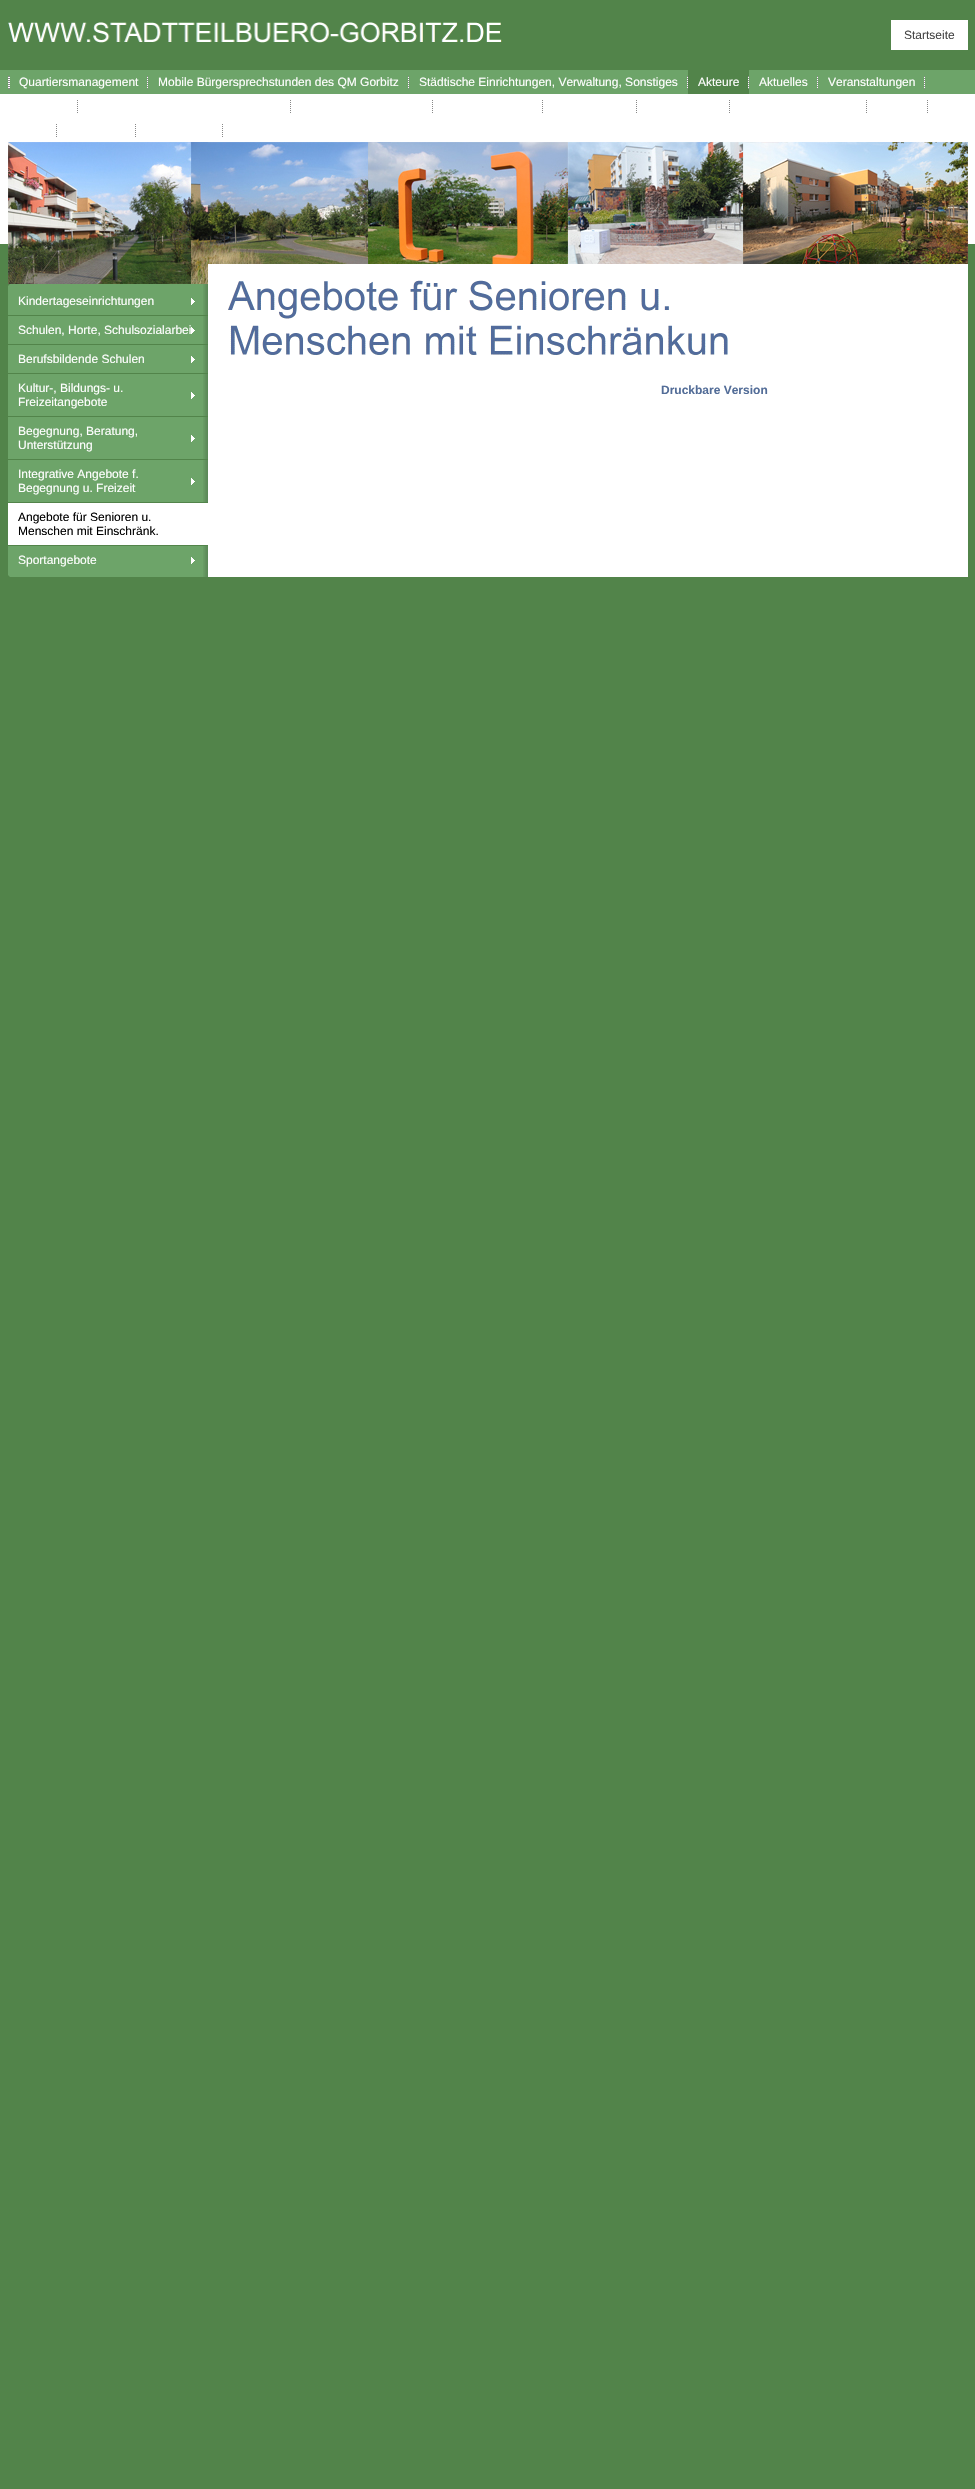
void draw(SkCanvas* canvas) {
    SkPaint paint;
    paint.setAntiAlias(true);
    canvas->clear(0xFF52844A);
    canvas->drawImageRect(SkImages::DeferredFromEncodedData(SkData::MakeFromFileName("img1.png")), SkRect::MakeXYWH(8, 22, 494, 21), SkSamplingOptions());
    paint.setColor(0xFFFFFFFF);
    canvas->drawRect(SkRect::MakeXYWH(891, 20, 77, 30), paint);
    SkFont font1(fontMgr->matchFamilyStyle("Liberation Sans", SkFontStyle::Normal()), 12);
    font1.setSubpixel(true);
    paint.setColor(0xFF444444);
    canvas->drawString("Startseite", 904, 39, font1, paint);
    paint.setColor(0xFF6DA469);
    canvas->drawRect(SkRect::MakeXYWH(0, 70, 975, 24), paint);
    canvas->drawImageRect(SkImages::DeferredFromEncodedData(SkData::MakeFromFileName("img2.png")), SkRect::MakeXYWH(8, 76, 2, 13), SkSamplingOptions());
    canvas->drawImageRect(SkImages::DeferredFromEncodedData(SkData::MakeFromFileName("img3.png")), SkRect::MakeXYWH(147, 76, 1, 13), SkSamplingOptions());
    paint.setColor(0xFFFFFFFF);
    canvas->drawString("Quartiersmanagement", 19, 86, font1, paint);
    canvas->drawImageRect(SkImages::DeferredFromEncodedData(SkData::MakeFromFileName("img3.png")), SkRect::MakeXYWH(408, 76, 1, 13), SkSamplingOptions());
    canvas->drawString("Mobile Bürgersprechstunden des QM Gorbitz", 158, 86, font1, paint);
    canvas->drawImageRect(SkImages::DeferredFromEncodedData(SkData::MakeFromFileName("img3.png")), SkRect::MakeXYWH(687, 76, 1, 13), SkSamplingOptions());
    canvas->drawString("Städtische Einrichtungen, Verwaltung, Sonstiges", 419, 86, font1, paint);
    paint.setColor(0xFF52844A);
    canvas->drawRect(SkRect::MakeXYWH(688, 70, 61, 24), paint);
    canvas->drawImageRect(SkImages::DeferredFromEncodedData(SkData::MakeFromFileName("img3.png")), SkRect::MakeXYWH(748, 76, 1, 13), SkSamplingOptions());
    paint.setColor(0xFFFFFFFF);
    canvas->drawString("Akteure", 698, 86, font1, paint);
    canvas->drawImageRect(SkImages::DeferredFromEncodedData(SkData::MakeFromFileName("img3.png")), SkRect::MakeXYWH(817, 76, 1, 13), SkSamplingOptions());
    canvas->drawString("Aktuelles", 759, 86, font1, paint);
    canvas->drawImageRect(SkImages::DeferredFromEncodedData(SkData::MakeFromFileName("img3.png")), SkRect::MakeXYWH(924, 76, 1, 13), SkSamplingOptions());
    canvas->drawString("Veranstaltungen", 828, 86, font1, paint);
    canvas->drawRect(SkRect::MakeXYWH(0, 94, 975, 150), paint);
    canvas->drawImageRect(SkImages::DeferredFromEncodedData(SkData::MakeFromFileName("img3.png")), SkRect::MakeXYWH(77, 100, 1, 13), SkSamplingOptions());
    canvas->drawImageRect(SkImages::DeferredFromEncodedData(SkData::MakeFromFileName("img3.png")), SkRect::MakeXYWH(290, 100, 1, 13), SkSamplingOptions());
    canvas->drawImageRect(SkImages::DeferredFromEncodedData(SkData::MakeFromFileName("img3.png")), SkRect::MakeXYWH(432, 100, 1, 13), SkSamplingOptions());
    canvas->drawImageRect(SkImages::DeferredFromEncodedData(SkData::MakeFromFileName("img3.png")), SkRect::MakeXYWH(542, 100, 1, 13), SkSamplingOptions());
    canvas->drawImageRect(SkImages::DeferredFromEncodedData(SkData::MakeFromFileName("img3.png")), SkRect::MakeXYWH(636, 100, 1, 13), SkSamplingOptions());
    canvas->drawImageRect(SkImages::DeferredFromEncodedData(SkData::MakeFromFileName("img3.png")), SkRect::MakeXYWH(729, 100, 1, 13), SkSamplingOptions());
    canvas->drawImageRect(SkImages::DeferredFromEncodedData(SkData::MakeFromFileName("img3.png")), SkRect::MakeXYWH(866, 100, 1, 13), SkSamplingOptions());
    canvas->drawImageRect(SkImages::DeferredFromEncodedData(SkData::MakeFromFileName("img3.png")), SkRect::MakeXYWH(927, 100, 1, 13), SkSamplingOptions());
    canvas->drawImageRect(SkImages::DeferredFromEncodedData(SkData::MakeFromFileName("img3.png")), SkRect::MakeXYWH(56, 124, 1, 13), SkSamplingOptions());
    canvas->drawImageRect(SkImages::DeferredFromEncodedData(SkData::MakeFromFileName("img3.png")), SkRect::MakeXYWH(135, 124, 1, 13), SkSamplingOptions());
    canvas->drawImageRect(SkImages::DeferredFromEncodedData(SkData::MakeFromFileName("img3.png")), SkRect::MakeXYWH(222, 124, 1, 13), SkSamplingOptions());
    canvas->drawImageRect(SkImages::DeferredFromEncodedData(SkData::MakeFromFileName("img4.png")), SkRect::MakeXYWH(8, 142, 960, 142), SkSamplingOptions());
    canvas->drawRect(SkRect::MakeXYWH(208, 264, 760, 313), paint);
    paint.setColor(0xFF6DA469);
    canvas->drawRect(SkRect::MakeXYWH(8, 284, 195, 293), paint);
    canvas->drawImageRect(SkImages::DeferredFromEncodedData(SkData::MakeFromFileName("img5.png")), SkRect::MakeXYWH(203, 284, 5, 293), SkSamplingOptions());
    canvas->drawImageRect(SkImages::DeferredFromEncodedData(SkData::MakeFromFileName("img6.png")), SkRect::MakeXYWH(8, 284, 2, 2), SkSamplingOptions());
    canvas->drawImageRect(SkImages::DeferredFromEncodedData(SkData::MakeFromFileName("img7.png")), SkRect::MakeXYWH(191, 298, 4, 7), SkSamplingOptions());
    paint.setColor(0xFFFFFFFF);
    canvas->drawString("Kindertageseinrichtungen", 18, 305, font1, paint);
    canvas->drawImageRect(SkImages::DeferredFromEncodedData(SkData::MakeFromFileName("img7.png")), SkRect::MakeXYWH(191, 327, 4, 7), SkSamplingOptions());
    paint.setColor(0xFF52844A);
    canvas->drawRect(SkRect::MakeXYWH(8, 315, 200, 1), paint);
    paint.setColor(0xFFFFFFFF);
    canvas->drawString("Schulen, Horte, Schulsozialarbei", 18, 334, font1, paint);
    canvas->drawImageRect(SkImages::DeferredFromEncodedData(SkData::MakeFromFileName("img7.png")), SkRect::MakeXYWH(191, 356, 4, 7), SkSamplingOptions());
    paint.setColor(0xFF52844A);
    canvas->drawRect(SkRect::MakeXYWH(8, 344, 200, 1), paint);
    paint.setColor(0xFFFFFFFF);
    canvas->drawString("Berufsbildende Schulen", 18, 363, font1, paint);
    canvas->drawImageRect(SkImages::DeferredFromEncodedData(SkData::MakeFromFileName("img7.png")), SkRect::MakeXYWH(191, 392, 4, 7), SkSamplingOptions());
    paint.setColor(0xFF52844A);
    canvas->drawRect(SkRect::MakeXYWH(8, 373, 200, 1), paint);
    paint.setColor(0xFFFFFFFF);
    canvas->drawString("Kultur-, Bildungs- u.", 18, 392, font1, paint);
    canvas->drawString("Freizeitangebote", 18, 406, font1, paint);
    canvas->drawImageRect(SkImages::DeferredFromEncodedData(SkData::MakeFromFileName("img7.png")), SkRect::MakeXYWH(191, 435, 4, 7), SkSamplingOptions());
    paint.setColor(0xFF52844A);
    canvas->drawRect(SkRect::MakeXYWH(8, 416, 200, 1), paint);
    paint.setColor(0xFFFFFFFF);
    canvas->drawString("Begegnung, Beratung,", 18, 435, font1, paint);
    canvas->drawString("Unterstützung", 18, 449, font1, paint);
    canvas->drawImageRect(SkImages::DeferredFromEncodedData(SkData::MakeFromFileName("img7.png")), SkRect::MakeXYWH(191, 478, 4, 7), SkSamplingOptions());
    paint.setColor(0xFF52844A);
    canvas->drawRect(SkRect::MakeXYWH(8, 459, 200, 1), paint);
    paint.setColor(0xFFFFFFFF);
    canvas->drawString("Integrative Angebote f.", 18, 478, font1, paint);
    canvas->drawString("Begegnung u. Freizeit", 18, 492, font1, paint);
    canvas->drawRect(SkRect::MakeXYWH(8, 503, 200, 42), paint);
    paint.setColor(0xFF52844A);
    canvas->drawRect(SkRect::MakeXYWH(8, 502, 200, 1), paint);
    paint.setColor(0xFF000000);
    canvas->drawString("Angebote für Senioren u.", 18, 521, font1, paint);
    canvas->drawString("Menschen mit Einschränk.", 18, 535, font1, paint);
    canvas->drawImageRect(SkImages::DeferredFromEncodedData(SkData::MakeFromFileName("img7.png")), SkRect::MakeXYWH(191, 557, 4, 7), SkSamplingOptions());
    paint.setColor(0xFF52844A);
    canvas->drawRect(SkRect::MakeXYWH(8, 545, 200, 1), paint);
    paint.setColor(0xFFFFFFFF);
    canvas->drawString("Sportangebote", 18, 564, font1, paint);
    canvas->drawImageRect(SkImages::DeferredFromEncodedData(SkData::MakeFromFileName("img8.png")), SkRect::MakeXYWH(8, 575, 2, 2), SkSamplingOptions());
    canvas->drawImageRect(SkImages::DeferredFromEncodedData(SkData::MakeFromFileName("img9.png")), SkRect::MakeXYWH(228, 280, 500, 76), SkSamplingOptions());
    SkFont font2(fontMgr->matchFamilyStyle("Liberation Sans", SkFontStyle::Bold()), 12);
    font2.setSubpixel(true);
    paint.setColor(0xFF536D98);
    canvas->drawString("Druckbare Version", 661, 394, font2, paint);
}
